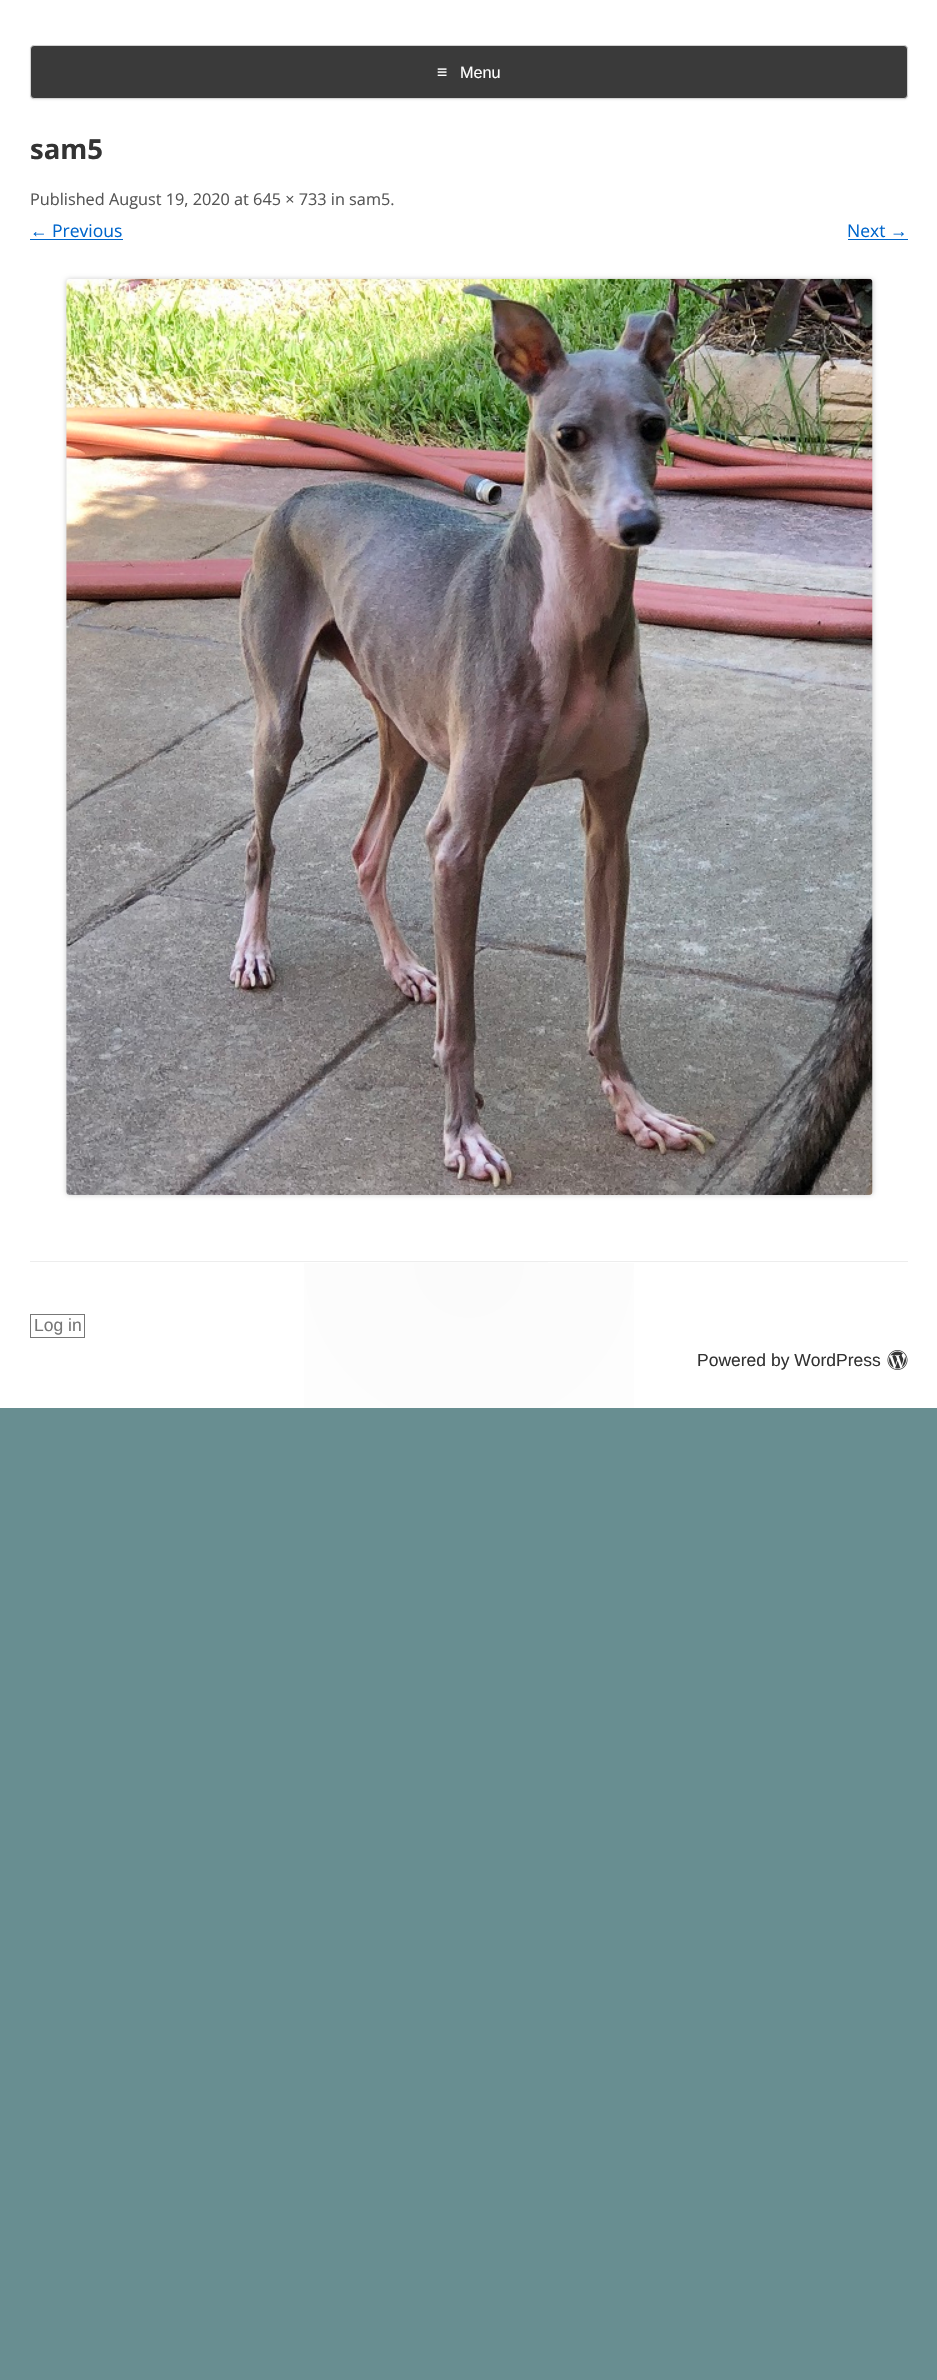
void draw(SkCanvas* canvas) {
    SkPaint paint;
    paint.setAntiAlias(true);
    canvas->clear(0xFF688E91);
    paint.setColor(0xFFFFFFFF);
    canvas->drawRect(SkRect::MakeXYWH(0, 0, 937, 1408), paint);
    paint.setColor(0x1A404040);
    paint.setMaskFilter(SkMaskFilter::MakeBlur(kNormal_SkBlurStyle, 1));
    canvas->drawRoundRect(SkRect::MakeXYWH(30, 46, 878, 54), 4, 4, paint);
    paint.setMaskFilter(nullptr);
    paint.setColor(0xFF3A3A3A);
    canvas->drawRoundRect(SkRect::MakeXYWH(30.5f, 45.5f, 877, 53), 3.5f, 3.5f, paint);
    paint.setStyle(SkPaint::kStroke_Style);
    paint.setStrokeWidth(1);
    paint.setColor(0xFFD2D2D2);
    canvas->drawRoundRect(SkRect::MakeXYWH(30.5f, 45.5f, 877, 53), 3.5f, 3.5f, paint);
    SkFont font1(fontMgr->matchFamilyStyle("Liberation Sans", SkFontStyle::Normal()), 17.5f);
    font1.setSubpixel(true);
    paint.setStyle(SkPaint::kFill_Style);
    paint.setColor(0xFFFFFFFF);
    canvas->drawString("≡", 437, 78, font1, paint);
    SkFont font2(fontMgr->matchFamilyStyle("Liberation Sans", SkFontStyle::Normal()), 16.25f);
    font2.setSubpixel(true);
    canvas->drawString("Menu", 460, 78, font2, paint);
    SkFont font3(fontMgr->matchFamilyStyle("Open Sans", SkFontStyle::Bold()), 27.5f);
    font3.setSubpixel(true);
    paint.setColor(0xFF333333);
    canvas->drawString("sam5", 30, 159, font3, paint);
    SkFont font4(fontMgr->matchFamilyStyle("Open Sans", SkFontStyle::Normal()), 16.25f);
    font4.setSubpixel(true);
    paint.setColor(0xFF555555);
    canvas->drawString("Published August 19, 2020 at 645 × 733 in sam5.", 30, 205, font4, paint);
    paint.setColor(0xFF0066CC);
    canvas->drawString("←", 30, 237, font1, paint);
    canvas->drawRect(SkRect::MakeXYWH(30, 239, 93, 1), paint);
    SkFont font5(fontMgr->matchFamilyStyle("Open Sans", SkFontStyle::Normal()), 17.5f);
    font5.setSubpixel(true);
    canvas->drawString("Previous", 52, 237, font5, paint);
    canvas->drawString("Next", 847, 237, font5, paint);
    canvas->drawString("→", 890, 237, font1, paint);
    canvas->drawRect(SkRect::MakeXYWH(848, 239, 60, 1), paint);
    paint.setColor(0x33000000);
    paint.setMaskFilter(SkMaskFilter::MakeBlur(kNormal_SkBlurStyle, 2.5f));
    canvas->drawRoundRect(SkRect::MakeXYWH(66, 279, 807, 916), 4, 4, paint);
    paint.setMaskFilter(nullptr);
    canvas->drawImageRect(SkImages::DeferredFromEncodedData(SkData::MakeFromFileName("img1.png")), SkRect::MakeXYWH(66, 278, 807, 917), SkSamplingOptions());
    {
        const SkColor colors[] = {0xFFFBFBFB, 0xFFFFFFFF};
        const float stops[] = {0, 1};
        paint.setShader(SkGradientShader::MakeRadial({469, 1118}, 439, colors, stops, 2, SkTileMode::kClamp));
        paint.setAlpha(255);
    }
    canvas->drawRect(SkRect::MakeXYWH(390, 1262, 158, 1), paint);
    {
        const SkColor colors[] = {0xFFFBFBFB, 0xFFFFFFFF};
        const float stops[] = {0, 1};
        paint.setShader(SkGradientShader::MakeRadial({469, 1263}, 439, colors, stops, 2, SkTileMode::kClamp));
        paint.setAlpha(255);
    }
    canvas->drawRect(SkRect::MakeXYWH(304, 1263, 330, 145), paint);
    paint.setShader(nullptr);
    paint.setColor(0xFFEDEDED);
    canvas->drawRect(SkRect::MakeXYWH(30, 1261, 878, 1), paint);
    paint.setStyle(SkPaint::kStroke_Style);
    paint.setColor(0xFF777777);
    canvas->drawRect(SkRect::MakeXYWH(30.5f, 1314.5f, 54, 23), paint);
    paint.setStyle(SkPaint::kFill_Style);
    canvas->drawString("Log in", 34, 1331, font1, paint);
    paint.setColor(0xFF333333);
    canvas->drawString("Powered by WordPress", 697, 1366, font1, paint);
    canvas->drawImageRect(SkImages::DeferredFromEncodedData(SkData::MakeFromFileName("img2.png")), SkRect::MakeXYWH(887, 1350, 21, 20), SkSamplingOptions());
}
